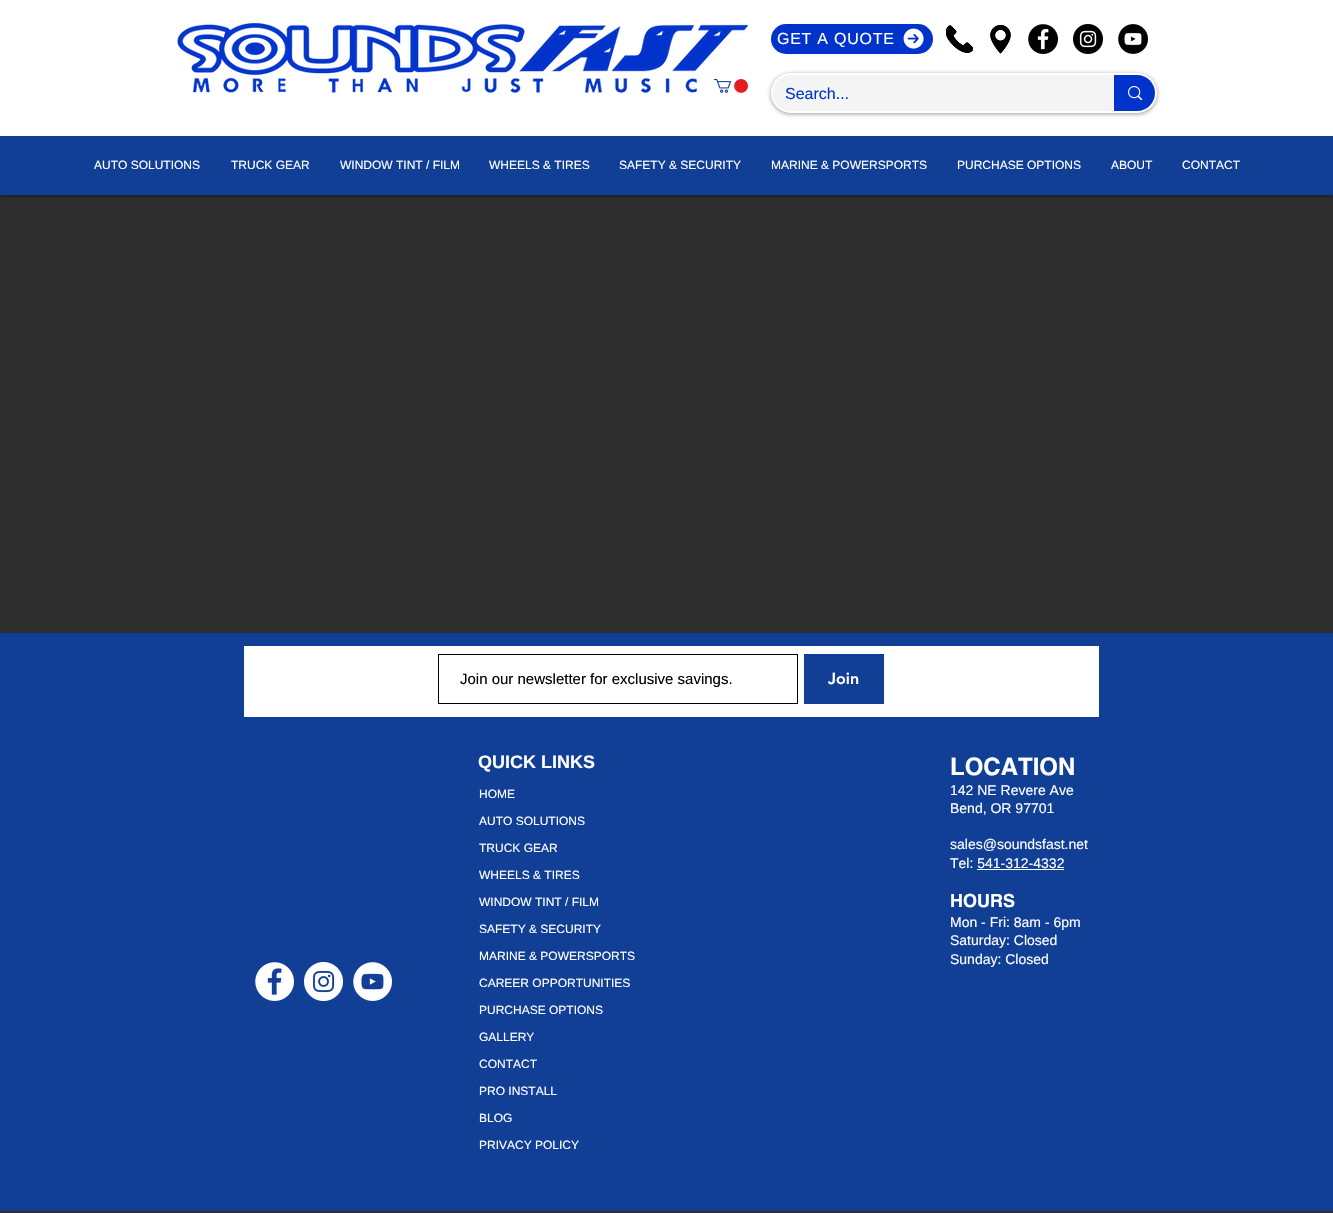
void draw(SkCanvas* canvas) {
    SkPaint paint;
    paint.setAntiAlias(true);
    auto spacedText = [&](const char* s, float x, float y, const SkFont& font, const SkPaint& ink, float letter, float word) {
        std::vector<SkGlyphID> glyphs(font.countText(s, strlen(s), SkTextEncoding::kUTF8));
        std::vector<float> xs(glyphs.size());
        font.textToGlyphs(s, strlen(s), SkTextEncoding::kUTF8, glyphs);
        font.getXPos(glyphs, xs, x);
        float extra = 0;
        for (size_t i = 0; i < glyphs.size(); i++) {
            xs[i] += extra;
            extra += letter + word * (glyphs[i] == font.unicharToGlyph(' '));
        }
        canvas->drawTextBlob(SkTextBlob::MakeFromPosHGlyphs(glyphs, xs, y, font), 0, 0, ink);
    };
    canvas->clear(0xFF2F2E2E);
    paint.setColor(0xB3000000);
    paint.setMaskFilter(SkMaskFilter::MakeBlur(kNormal_SkBlurStyle, 2.5f));
    canvas->drawRect(SkRect::MakeXYWH(0, 0, 1333, 195), paint);
    paint.setMaskFilter(nullptr);
    paint.setColor(0xFFFFFFFF);
    canvas->drawRect(SkRect::MakeXYWH(0, 0, 1333, 136), paint);
    canvas->drawImageRect(SkImages::DeferredFromEncodedData(SkData::MakeFromFileName("img1.png")), SkRect::MakeXYWH(177, 22, 571, 71), SkSamplingOptions());
    paint.setColor(0xFF0033CC);
    canvas->drawRoundRect(SkRect::MakeXYWH(771, 24, 162, 30), 15, 15, paint);
    SkFont font1(fontMgr->matchFamilyStyle("Liberation Sans", SkFontStyle::Normal()), 16);
    font1.setSubpixel(true);
    paint.setColor(0xFFFFFFFF);
    spacedText("GET A QUOTE", 777, 44, font1, paint, 0.75f, 0);
    canvas->drawImageRect(SkImages::DeferredFromEncodedData(SkData::MakeFromFileName("img2.png")), SkRect::MakeXYWH(903, 28, 21, 21), SkSamplingOptions());
    canvas->drawImageRect(SkImages::DeferredFromEncodedData(SkData::MakeFromFileName("img3.png")), SkRect::MakeXYWH(946, 25, 27, 28), SkSamplingOptions());
    canvas->drawImageRect(SkImages::DeferredFromEncodedData(SkData::MakeFromFileName("img4.png")), SkRect::MakeXYWH(988, 24, 23, 30), SkSamplingOptions());
    canvas->drawImageRect(SkImages::DeferredFromEncodedData(SkData::MakeFromFileName("img5.png")), SkRect::MakeXYWH(1028, 24, 30, 30), SkSamplingOptions());
    canvas->drawImageRect(SkImages::DeferredFromEncodedData(SkData::MakeFromFileName("img6.png")), SkRect::MakeXYWH(1073, 24, 30, 30), SkSamplingOptions());
    canvas->drawImageRect(SkImages::DeferredFromEncodedData(SkData::MakeFromFileName("img7.png")), SkRect::MakeXYWH(1118, 24, 30, 30), SkSamplingOptions());
    canvas->drawImageRect(SkImages::DeferredFromEncodedData(SkData::MakeFromFileName("img8.png")), SkRect::MakeXYWH(714, 79, 34, 14), SkSamplingOptions());
    canvas->save();
    canvas->clipPath(SkPathBuilder(SkPathFillType::kEvenOdd).moveTo(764, 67).lineTo(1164, 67).lineTo(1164, 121).lineTo(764, 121).close().moveTo(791, 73).lineTo(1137, 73).cubicTo(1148, 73, 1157, 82, 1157, 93).cubicTo(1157, 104, 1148, 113, 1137, 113).lineTo(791, 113).cubicTo(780, 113, 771, 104, 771, 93).cubicTo(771, 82, 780, 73, 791, 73).close().detach(), true);
    paint.setColor(0x66000000);
    paint.setMaskFilter(SkMaskFilter::MakeBlur(kNormal_SkBlurStyle, 2));
    canvas->drawRoundRect(SkRect::MakeXYWH(771, 74, 386, 40), 20, 20, paint);
    paint.setMaskFilter(nullptr);
    canvas->restore();
    paint.setColor(0xFFF4F4F4);
    canvas->drawRoundRect(SkRect::MakeXYWH(773, 75, 382, 36), 18, 18, paint);
    paint.setColor(0xFF0033CC);
    canvas->drawString("Search...", 785, 99, font1, paint);
    canvas->drawPath(SkPathBuilder().moveTo(1114, 75).lineTo(1137, 75).cubicTo(1147, 75, 1155, 83, 1155, 93).cubicTo(1155, 103, 1147, 111, 1137, 111).lineTo(1114, 111).close().detach(), paint);
    canvas->drawImageRect(SkImages::DeferredFromEncodedData(SkData::MakeFromFileName("img9.png")), SkRect::MakeXYWH(1128, 86, 15, 14), SkSamplingOptions());
    paint.setColor(0xFF113F96);
    canvas->drawRect(SkRect::MakeXYWH(0, 136, 1333, 59), paint);
    SkFont font2(fontMgr->matchFamilyStyle("Liberation Sans", SkFontStyle::Normal()), 12);
    font2.setSubpixel(true);
    paint.setColor(0xFFFFFFFF);
    canvas->drawString("AUTO SOLUTIONS", 94, 169, font2, paint);
    canvas->drawString("TRUCK GEAR", 231, 169, font2, paint);
    canvas->drawString("WINDOW TINT / FILM", 340, 169, font2, paint);
    canvas->drawString("WHEELS & TIRES", 489, 169, font2, paint);
    canvas->drawString("SAFETY & SECURITY", 619, 169, font2, paint);
    canvas->drawString("MARINE & POWERSPORTS", 771, 169, font2, paint);
    canvas->drawString("PURCHASE OPTIONS", 957, 169, font2, paint);
    canvas->drawString("ABOUT", 1111, 169, font2, paint);
    canvas->drawString("CONTACT", 1182, 169, font2, paint);
    paint.setColor(0xFF113F96);
    canvas->drawRect(SkRect::MakeXYWH(0, 633, 1333, 578), paint);
    paint.setColor(0xFFFFFFFF);
    canvas->drawRect(SkRect::MakeXYWH(244, 646, 855, 71), paint);
    paint.setStyle(SkPaint::kStroke_Style);
    paint.setStrokeWidth(1);
    paint.setColor(0xFF000000);
    canvas->drawRect(SkRect::MakeXYWH(438.5f, 654.5f, 359, 49), paint);
    SkFont font3(fontMgr->matchFamilyStyle("Liberation Sans", SkFontStyle::Normal()), 15);
    font3.setSubpixel(true);
    paint.setStyle(SkPaint::kFill_Style);
    canvas->drawString("Join our newsletter for exclusive savings.", 460, 684, font3, paint);
    paint.setColor(0xFF113F96);
    canvas->drawRect(SkRect::MakeXYWH(804, 654, 80, 50), paint);
    SkFont font4(fontMgr->matchFamilyStyle("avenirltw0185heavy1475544", SkFontStyle(900, SkFontStyle::kNormal_Width, SkFontStyle::kUpright_Slant)), 16);
    font4.setSubpixel(true);
    paint.setColor(0xFFFFFFFF);
    canvas->drawString("Join", 828, 684, font4, paint);
    SkFont font5(fontMgr->matchFamilyStyle("Liberation Sans", SkFontStyle::Bold()), 18);
    font5.setSubpixel(true);
    canvas->drawString("QUICK LINKS", 478, 768, font5, paint);
    SkFont font6(fontMgr->matchFamilyStyle("helvetica", SkFontStyle::Bold()), 24);
    font6.setSubpixel(true);
    canvas->drawString("LOCATION", 950, 775, font6, paint);
    SkFont font7(fontMgr->matchFamilyStyle("Liberation Sans", SkFontStyle::Normal()), 14);
    font7.setSubpixel(true);
    canvas->drawString("142 NE Revere Ave", 950, 795, font7, paint);
    canvas->drawString("Bend, OR 97701", 950, 813, font7, paint);
    canvas->drawString("sales@soundsfast.net", 950, 849, font7, paint);
    canvas->drawString("Tel: 541-312-4332", 950, 868, font7, paint);
    canvas->drawRect(SkRect::MakeXYWH(977, 869, 87, 1), paint);
    SkFont font8(fontMgr->matchFamilyStyle("helvetica", SkFontStyle::Bold()), 18);
    font8.setSubpixel(true);
    canvas->drawString("HOURS", 950, 907, font8, paint);
    canvas->drawString("Mon - Fri: 8am - 6pm", 950, 927, font7, paint);
    canvas->drawString("Saturday: Closed", 950, 945, font7, paint);
    canvas->drawString("Sunday: Closed", 950, 964, font7, paint);
    canvas->drawImageRect(SkImages::DeferredFromEncodedData(SkData::MakeFromFileName("img10.png")), SkRect::MakeXYWH(255, 962, 39, 39), SkSamplingOptions());
    canvas->drawImageRect(SkImages::DeferredFromEncodedData(SkData::MakeFromFileName("img11.png")), SkRect::MakeXYWH(304, 962, 39, 39), SkSamplingOptions());
    canvas->drawImageRect(SkImages::DeferredFromEncodedData(SkData::MakeFromFileName("img12.png")), SkRect::MakeXYWH(353, 962, 39, 39), SkSamplingOptions());
    canvas->drawString("HOME", 479, 798, font2, paint);
    canvas->drawString("AUTO SOLUTIONS", 479, 825, font2, paint);
    canvas->drawString("TRUCK GEAR", 479, 852, font2, paint);
    canvas->drawString("WHEELS & TIRES", 479, 879, font2, paint);
    canvas->drawString("WINDOW TINT / FILM", 479, 906, font2, paint);
    canvas->drawString("SAFETY & SECURITY", 479, 933, font2, paint);
    canvas->drawString("MARINE & POWERSPORTS", 479, 960, font2, paint);
    canvas->drawString("CAREER OPPORTUNITIES", 479, 987, font2, paint);
    canvas->drawString("PURCHASE OPTIONS", 479, 1014, font2, paint);
    canvas->drawString("GALLERY", 479, 1041, font2, paint);
    canvas->drawString("CONTACT", 479, 1068, font2, paint);
    canvas->drawString("PRO INSTALL", 479, 1095, font2, paint);
    canvas->drawString("BLOG", 479, 1122, font2, paint);
    canvas->drawString("PRIVACY POLICY", 479, 1149, font2, paint);
}
